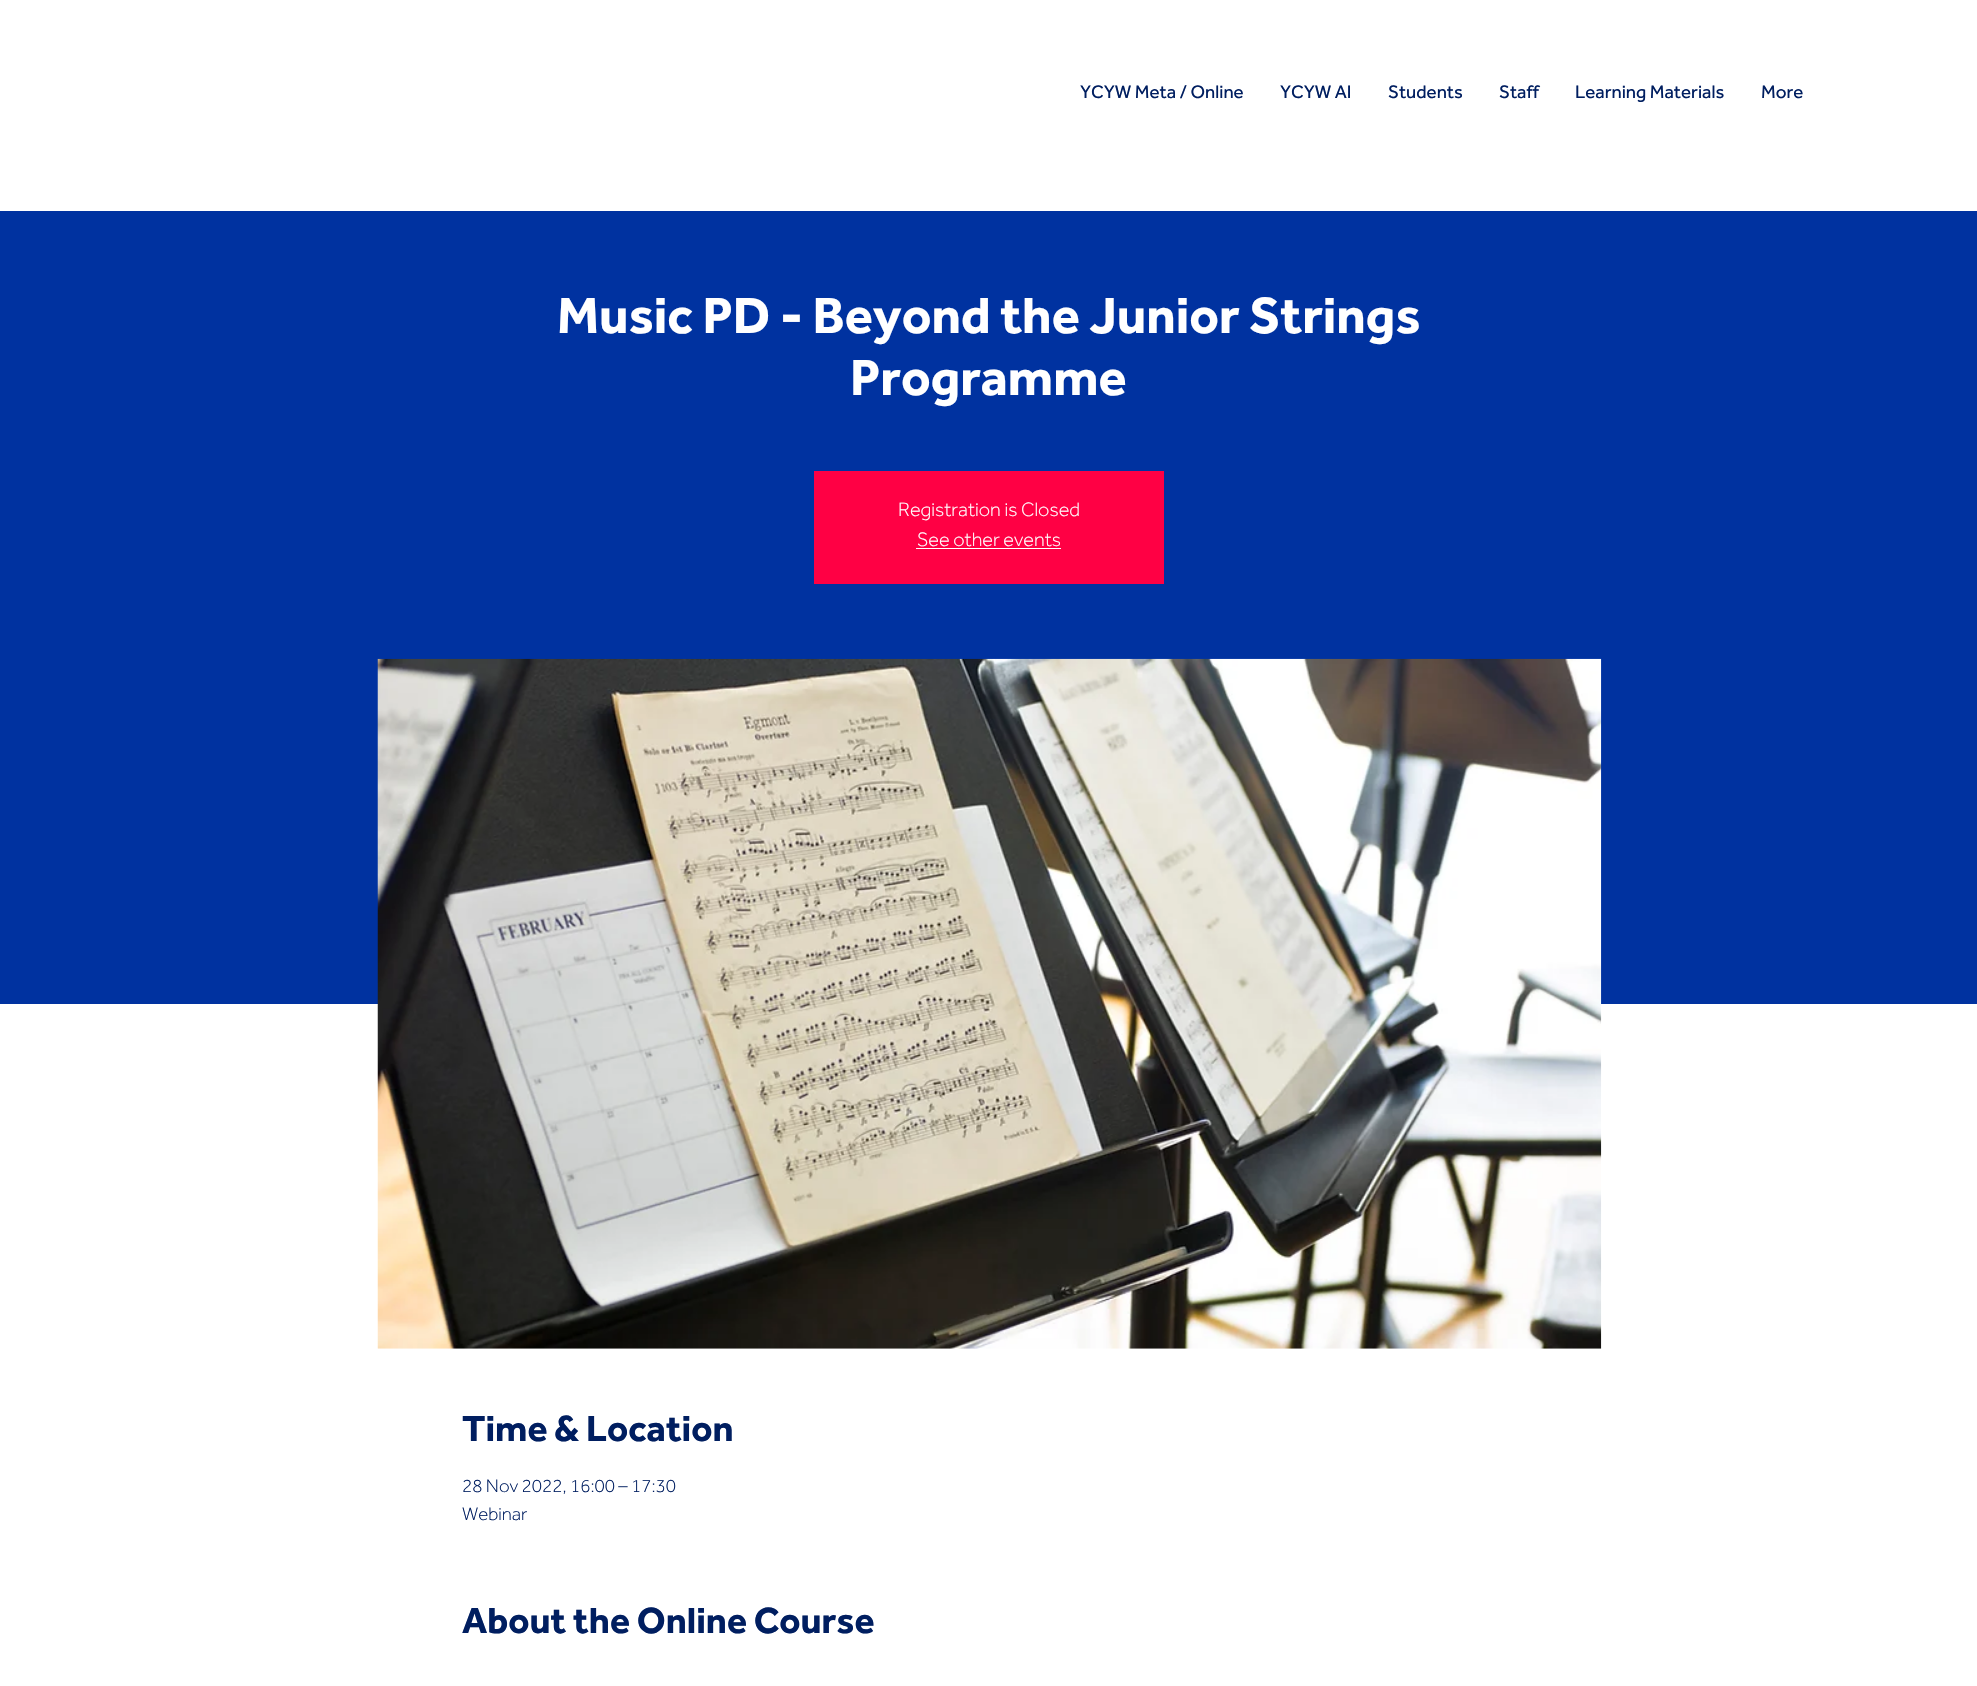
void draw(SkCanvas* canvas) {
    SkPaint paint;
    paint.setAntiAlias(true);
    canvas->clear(0xFFFFFFFF);
    SkFont font1(fontMgr->matchFamilyStyle("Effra", SkFontStyle::Normal()), 18.75f);
    font1.setSubpixel(true);
    paint.setColor(0xFF001E60);
    canvas->drawString("YCYW Meta / Online", 1080, 98, font1, paint);
    canvas->drawString("YCYW AI", 1280, 98, font1, paint);
    canvas->drawString("Students", 1388, 98, font1, paint);
    canvas->drawString("Staff", 1499, 98, font1, paint);
    canvas->drawString("Learning Materials", 1575, 98, font1, paint);
    canvas->drawString("More", 1761, 98, font1, paint);
    paint.setColor(0xFF0032A0);
    canvas->drawRect(SkRect::MakeXYWH(0, 211, 1977, 793), paint);
    SkFont font2(fontMgr->matchFamilyStyle("Effra", SkFontStyle::Bold()), 52.5f);
    font2.setSubpixel(true);
    paint.setColor(0xFFFFFFFF);
    canvas->drawString("Music PD - Beyond the Junior Strings", 557, 333, font2, paint);
    canvas->drawString("Programme", 850, 395, font2, paint);
    paint.setColor(0xFFFF0044);
    canvas->drawRect(SkRect::MakeXYWH(814, 471, 350, 113), paint);
    SkFont font3(fontMgr->matchFamilyStyle("Effra", SkFontStyle(300, SkFontStyle::kNormal_Width, SkFontStyle::kUpright_Slant)), 20);
    font3.setSubpixel(true);
    paint.setColor(0xFFFFFFFF);
    canvas->drawString("Registration is Closed", 898, 516, font3, paint);
    canvas->drawString("See other events", 917, 546, font3, paint);
    canvas->drawRect(SkRect::MakeXYWH(916, 548, 145, 1), paint);
    canvas->drawImageRect(SkImages::DeferredFromEncodedData(SkData::MakeFromFileName("img1.png")), SkRect::MakeXYWH(377, 658, 1225, 691), SkSamplingOptions());
    SkFont font4(fontMgr->matchFamilyStyle("Effra", SkFontStyle::Bold()), 37.5f);
    font4.setSubpixel(true);
    paint.setColor(0xFF001E60);
    canvas->drawString("Time & Location", 462, 1441, font4, paint);
    SkFont font5(fontMgr->matchFamilyStyle("Effra", SkFontStyle(300, SkFontStyle::kNormal_Width, SkFontStyle::kUpright_Slant)), 18.75f);
    font5.setSubpixel(true);
    canvas->drawString("28 Nov 2022, 16:00 – 17:30", 462, 1492, font5, paint);
    canvas->drawString("Webinar", 462, 1520, font5, paint);
    canvas->drawString("About the Online Course", 462, 1633, font4, paint);
}
